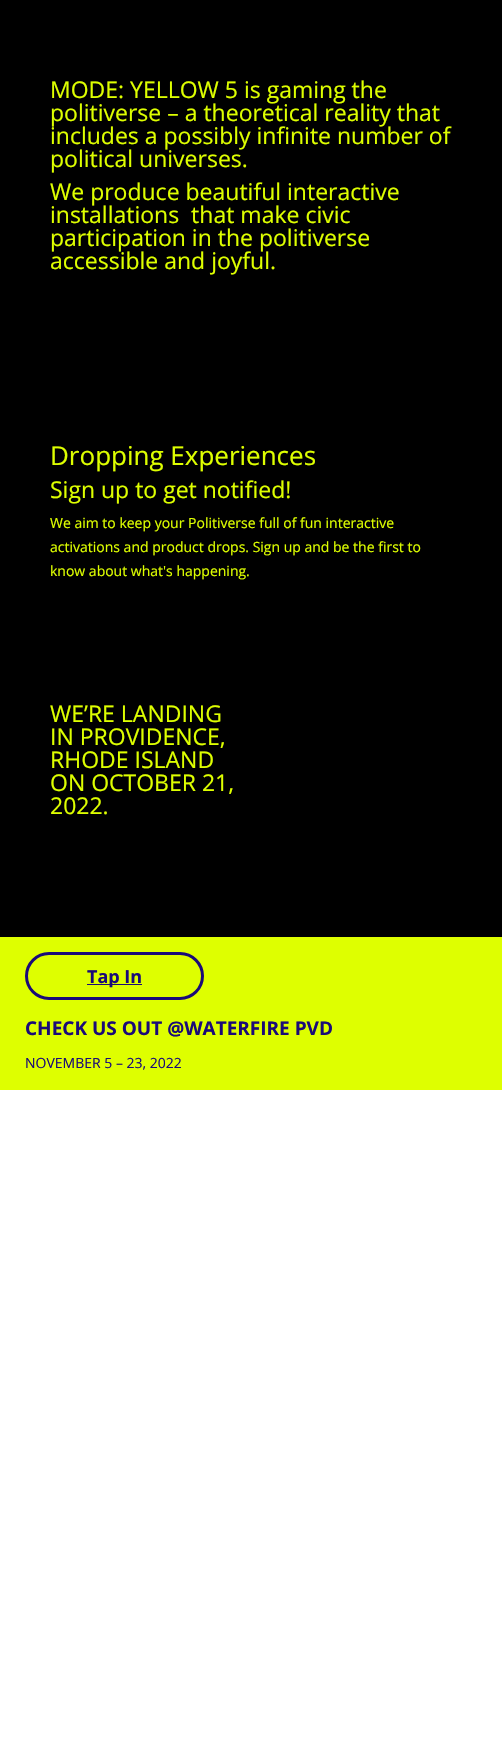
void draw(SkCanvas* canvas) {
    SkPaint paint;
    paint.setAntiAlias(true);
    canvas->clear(0xFFFFFFFF);
    paint.setColor(0xFF000000);
    canvas->drawRect(SkRect::MakeXYWH(0, 0, 502, 937), paint);
    SkFont font1(fontMgr->matchFamilyStyle("Open Sans", SkFontStyle::Normal()), 23);
    font1.setSubpixel(true);
    paint.setColor(0xFFDEFF00);
    canvas->drawString("MODE: YELLOW 5 is gaming the", 50, 98, font1, paint);
    canvas->drawString("politiverse – a theoretical reality that", 50, 121, font1, paint);
    canvas->drawString("includes a possibly infinite number of", 50, 144, font1, paint);
    canvas->drawString("political universes.", 50, 167, font1, paint);
    canvas->drawString("We produce beautiful interactive", 50, 200, font1, paint);
    canvas->drawString("installations  that make civic", 50, 223, font1, paint);
    canvas->drawString("participation in the politiverse", 50, 246, font1, paint);
    canvas->drawString("accessible and joyful.", 50, 269, font1, paint);
    SkFont font2(fontMgr->matchFamilyStyle("Open Sans", SkFontStyle::Normal()), 26);
    font2.setSubpixel(true);
    canvas->drawString("Dropping Experiences", 50, 465, font2, paint);
    canvas->drawString("Sign up to get notified!", 50, 498, font1, paint);
    SkFont font3(fontMgr->matchFamilyStyle("Open Sans", SkFontStyle::Normal()), 14);
    font3.setSubpixel(true);
    canvas->drawString("We aim to keep your Politiverse full of fun interactive", 50, 528, font3, paint);
    canvas->drawString("activations and product drops. Sign up and be the first to", 50, 552, font3, paint);
    canvas->drawString("know about what's happening.", 50, 576, font3, paint);
    canvas->drawString("WE’RE LANDING", 50, 722, font1, paint);
    canvas->drawString("IN PROVIDENCE,", 50, 745, font1, paint);
    canvas->drawString("RHODE ISLAND", 50, 768, font1, paint);
    canvas->drawString("ON OCTOBER 21,", 50, 791, font1, paint);
    canvas->drawString("2022.", 50, 814, font1, paint);
    canvas->drawRect(SkRect::MakeXYWH(0, 937, 502, 153), paint);
    paint.setStyle(SkPaint::kStroke_Style);
    paint.setStrokeWidth(3);
    paint.setColor(0xFF1A0A78);
    canvas->drawRoundRect(SkRect::MakeXYWH(26.5f, 953.5f, 176, 45), 22.5f, 22.5f, paint);
    paint.setStyle(SkPaint::kFill_Style);
    canvas->drawRect(SkRect::MakeXYWH(87, 984, 55, 1), paint);
    SkFont font4(fontMgr->matchFamilyStyle("Open Sans", SkFontStyle::Bold()), 18);
    font4.setSubpixel(true);
    canvas->drawString("Tap In", 87, 983, font4, paint);
    SkFont font5(fontMgr->matchFamilyStyle("Open Sans", SkFontStyle::Bold()), 19);
    font5.setSubpixel(true);
    canvas->drawString("CHECK US OUT @WATERFIRE PVD", 25, 1035, font5, paint);
    canvas->drawString("NOVEMBER 5 – 23, 2022", 25, 1068, font3, paint);
}
